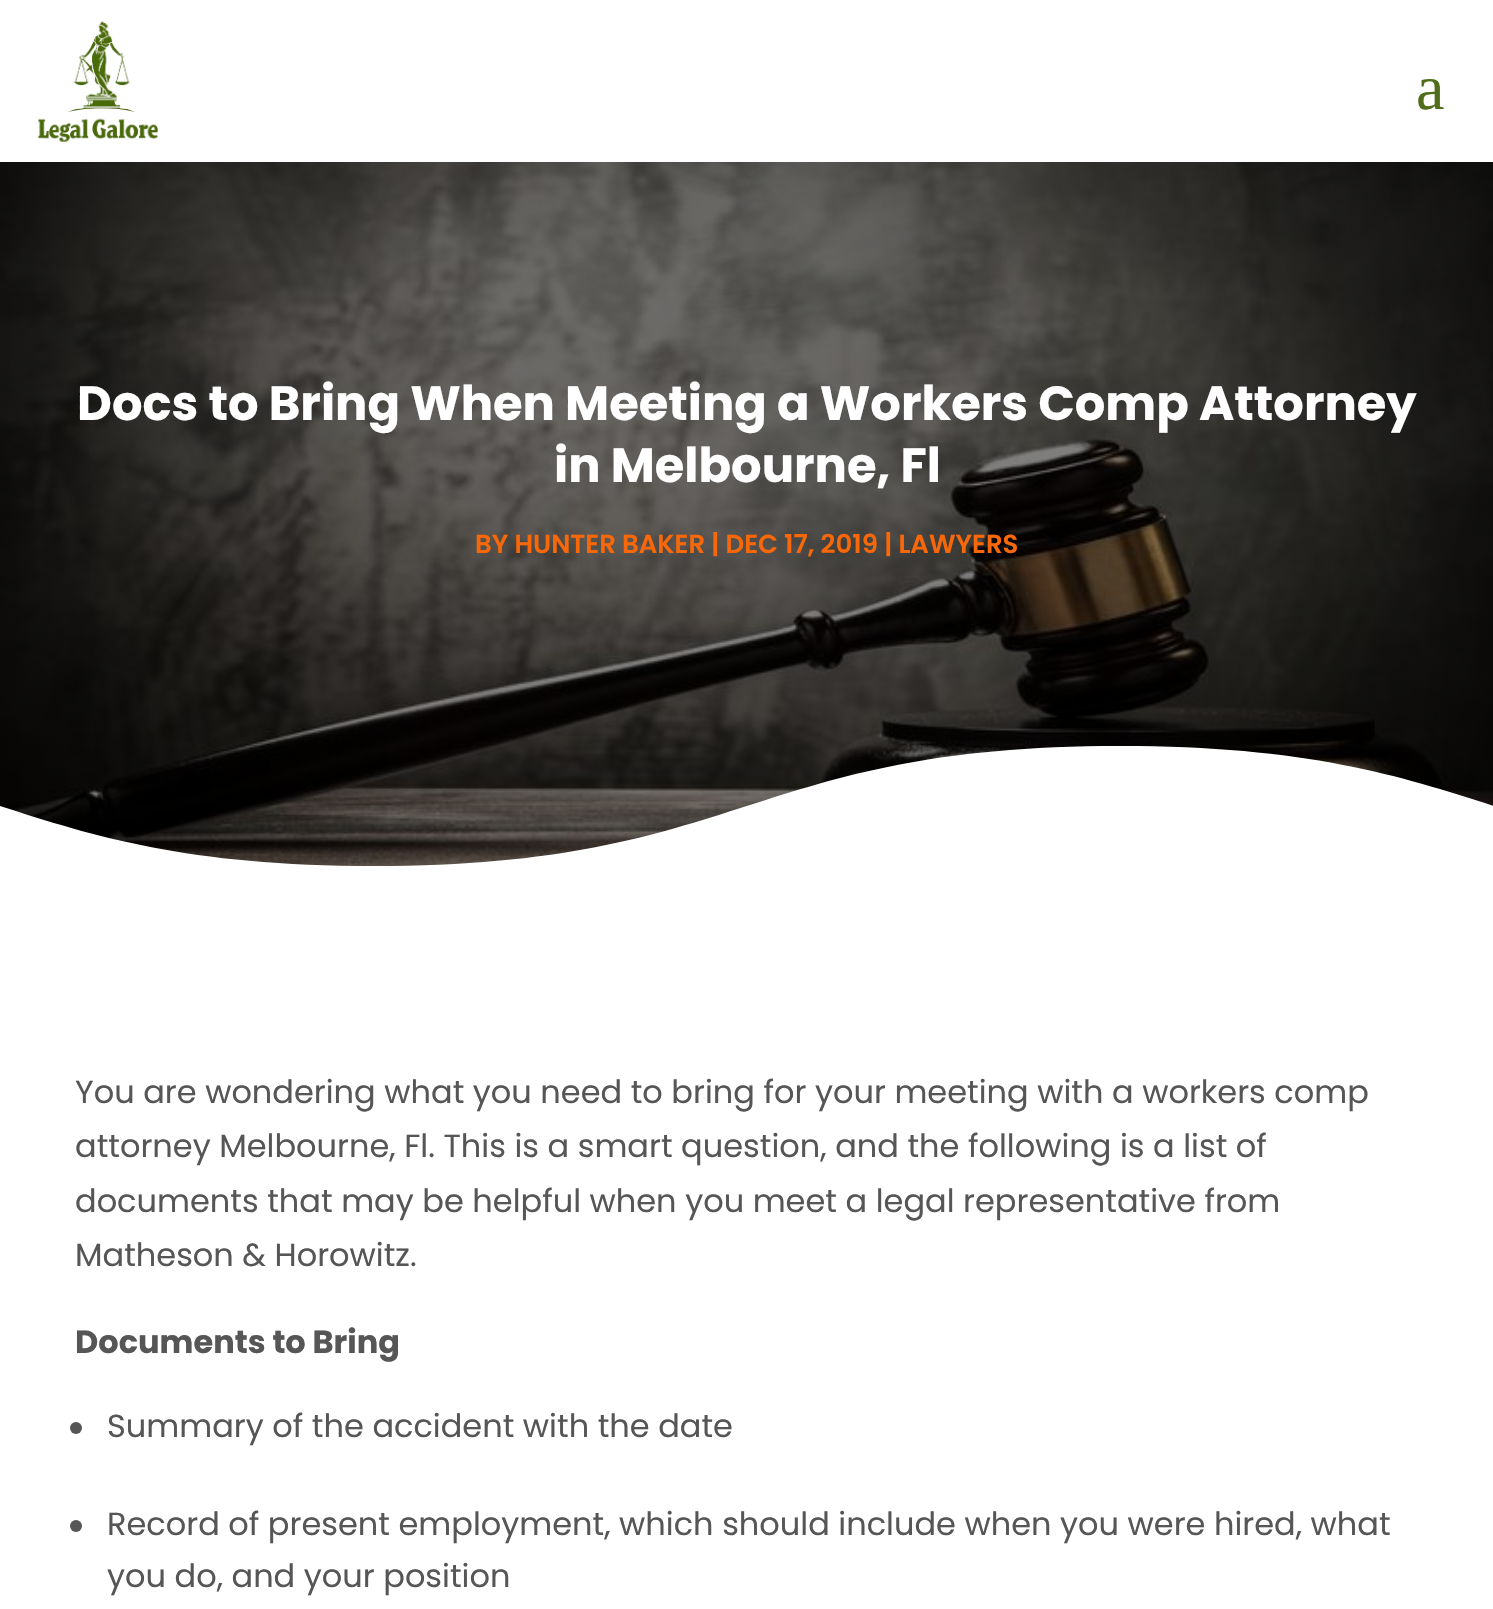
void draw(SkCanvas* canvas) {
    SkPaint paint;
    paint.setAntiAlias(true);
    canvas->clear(0xFFFFFFFF);
    canvas->drawImageRect(SkImages::DeferredFromEncodedData(SkData::MakeFromFileName("img1.png")), SkRect::MakeXYWH(38, 21, 120, 121), SkSamplingOptions());
    SkFont font1(fontMgr->matchFamilyStyle("Liberation Serif", SkFontStyle::Normal()), 64);
    font1.setSubpixel(true);
    paint.setColor(0xFF506E1A);
    canvas->drawString("a", 1416, 109, font1, paint);
    canvas->drawImageRect(SkImages::DeferredFromEncodedData(SkData::MakeFromFileName("img2.png")), SkRect::MakeXYWH(0, 162, 1493, 704), SkSamplingOptions());
    SkFont font2(fontMgr->matchFamilyStyle("Poppins", SkFontStyle::Bold()), 48);
    font2.setSubpixel(true);
    paint.setColor(0xFFFFFFFF);
    canvas->drawString("Docs to Bring When Meeting a Workers Comp Attorney", 77, 420, font2, paint);
    canvas->drawString("in Melbourne, Fl", 554, 482, font2, paint);
    SkFont font3(fontMgr->matchFamilyStyle("Poppins", SkFontStyle(600, SkFontStyle::kNormal_Width, SkFontStyle::kUpright_Slant)), 26);
    font3.setSubpixel(true);
    paint.setColor(0xFFF86708);
    canvas->drawString("BY HUNTER BAKER | DEC 17, 2019 | LAWYERS", 475, 553, font3, paint);
    paint.setColor(0xFFFFFFFF);
    canvas->drawPath(SkPathBuilder().moveTo(1120, 746).cubicTo(747, 746, 747, 866, 374, 866).cubicTo(187, 866, 93, 836, 0, 806).lineTo(0, 906).lineTo(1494, 906).lineTo(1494, 806).cubicTo(1401, 776, 1307, 746, 1120, 746).close().detach(), paint);
    SkFont font4(fontMgr->matchFamilyStyle("Poppins", SkFontStyle::Normal()), 32);
    font4.setSubpixel(true);
    paint.setColor(0xFF565656);
    canvas->drawString("You are wondering what you need to bring for your meeting with a workers comp", 75, 1103, font4, paint);
    canvas->drawString("attorney Melbourne, Fl. This is a smart question, and the following is a list of", 75, 1157, font4, paint);
    canvas->drawString("documents that may be helpful when you meet a legal representative from", 75, 1212, font4, paint);
    canvas->drawString("Matheson & Horowitz.", 75, 1266, font4, paint);
    SkFont font5(fontMgr->matchFamilyStyle("Poppins", SkFontStyle::Bold()), 32);
    font5.setSubpixel(true);
    canvas->drawString("Documents to Bring", 75, 1353, font5, paint);
    canvas->drawCircle(76, 1428, 6, paint);
    canvas->drawString("Summary of the accident with the date", 107, 1437, font4, paint);
    canvas->drawCircle(76, 1526, 6, paint);
    canvas->drawString("Record of present employment, which should include when you were hired, what", 107, 1535, font4, paint);
    canvas->drawString("you do, and your position", 107, 1587, font4, paint);
}
